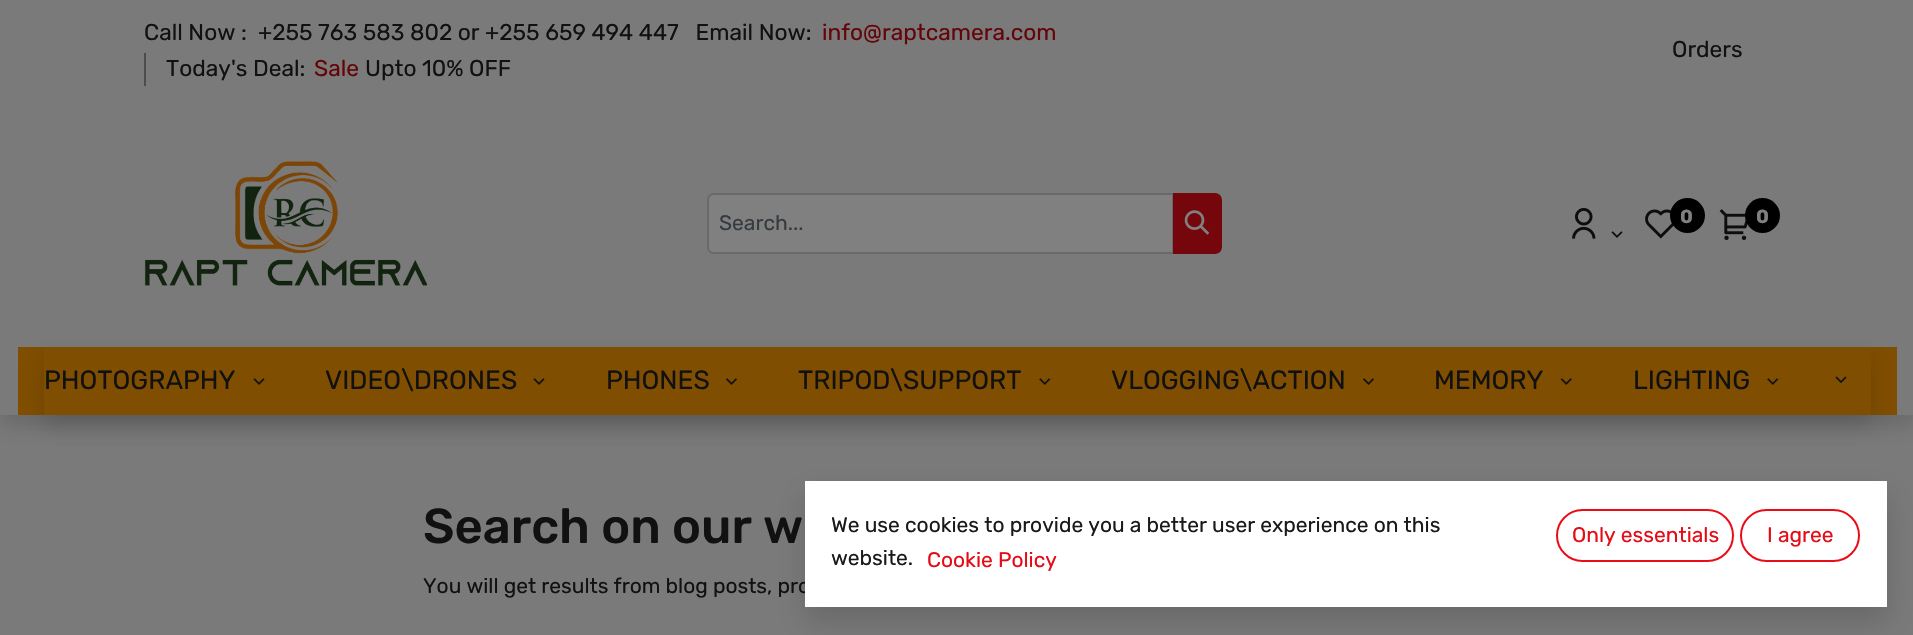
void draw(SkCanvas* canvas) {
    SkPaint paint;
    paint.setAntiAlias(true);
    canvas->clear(0xFF7A7A7A);
    paint.setColor(0x26000000);
    paint.setMaskFilter(SkMaskFilter::MakeBlur(kNormal_SkBlurStyle, 10.5f));
    canvas->drawRect(SkRect::MakeXYWH(0, 11, 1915, 414), paint);
    paint.setMaskFilter(nullptr);
    paint.setColor(0xFF7A7A7A);
    canvas->drawRect(SkRect::MakeXYWH(0, 0, 1913, 415), paint);
    SkFont font1(fontMgr->matchFamilyStyle("Rubik", SkFontStyle::Normal()), 22.75f);
    font1.setSubpixel(true);
    paint.setColor(0xFF111111);
    canvas->drawString("Call Now :  +255 763 583 802 or +255 659 494 447   Email Now:", 144, 40, font1, paint);
    paint.setColor(0xFF64050A);
    canvas->drawString("info@raptcamera.com", 822, 40, font1, paint);
    paint.setColor(0xFF4D4D4D);
    canvas->drawRect(SkRect::MakeXYWH(144, 53, 2, 33), paint);
    paint.setColor(0xFF111111);
    canvas->drawString("Today's Deal:", 166, 76, font1, paint);
    paint.setColor(0xFF64050A);
    canvas->drawString("Sale", 314, 76, font1, paint);
    paint.setColor(0xFF111111);
    canvas->drawString("Upto 10% OFF", 365, 76, font1, paint);
    canvas->drawString("Orders", 1672, 57, font1, paint);
    canvas->drawImageRect(SkImages::DeferredFromEncodedData(SkData::MakeFromFileName("img1.png")), SkRect::MakeXYWH(144, 161, 283, 125), SkSamplingOptions());
    paint.setColor(0xFF808080);
    canvas->drawPath(SkPathBuilder().moveTo(714, 194).lineTo(1173, 194).lineTo(1173, 253).lineTo(714, 253).cubicTo(710.5f, 253, 708, 250.5f, 708, 247).lineTo(708, 200).cubicTo(708, 196.5f, 710.5f, 194, 714, 194).close().detach(), paint);
    paint.setStyle(SkPaint::kStroke_Style);
    paint.setStrokeWidth(2);
    paint.setColor(0xFF676A6D);
    canvas->drawPath(SkPathBuilder().moveTo(714, 194).lineTo(1173, 194).lineTo(1173, 253).lineTo(714, 253).cubicTo(710.5f, 253, 708, 250.5f, 708, 247).lineTo(708, 200).cubicTo(708, 196.5f, 710.5f, 194, 714, 194).close().detach(), paint);
    SkFont font2(fontMgr->matchFamilyStyle("Rubik", SkFontStyle::Normal()), 21);
    font2.setSubpixel(true);
    paint.setStyle(SkPaint::kFill_Style);
    paint.setColor(0xFF363B3F);
    canvas->drawString("Search...", 719, 230, font2, paint);
    paint.setColor(0xFF75060B);
    canvas->drawPath(SkPathBuilder().moveTo(1174, 194).lineTo(1215, 194).cubicTo(1218.5f, 194, 1221, 196.5f, 1221, 200).lineTo(1221, 247).cubicTo(1221, 250.5f, 1218.5f, 253, 1215, 253).lineTo(1174, 253).close().detach(), paint);
    paint.setStyle(SkPaint::kStroke_Style);
    canvas->drawPath(SkPathBuilder().moveTo(1174, 194).lineTo(1215, 194).cubicTo(1218.5f, 194, 1221, 196.5f, 1221, 200).lineTo(1221, 247).cubicTo(1221, 250.5f, 1218.5f, 253, 1215, 253).lineTo(1174, 253).close().detach(), paint);
    canvas->drawImageRect(SkImages::DeferredFromEncodedData(SkData::MakeFromFileName("img2.png")), SkRect::MakeXYWH(1184, 210, 26, 25), SkSamplingOptions());
    canvas->drawImageRect(SkImages::DeferredFromEncodedData(SkData::MakeFromFileName("img3.png")), SkRect::MakeXYWH(1572, 208, 24, 31), SkSamplingOptions());
    canvas->drawImageRect(SkImages::DeferredFromEncodedData(SkData::MakeFromFileName("img4.png")), SkRect::MakeXYWH(1611, 231, 12, 7), SkSamplingOptions());
    canvas->drawImageRect(SkImages::DeferredFromEncodedData(SkData::MakeFromFileName("img5.png")), SkRect::MakeXYWH(1645, 209, 29, 30), SkSamplingOptions());
    paint.setStyle(SkPaint::kFill_Style);
    paint.setColor(0xFF000000);
    canvas->drawCircle(1687.5f, 215.5f, 17.5f, paint);
    SkFont font3(fontMgr->matchFamilyStyle("Rubik", SkFontStyle::Bold()), 19);
    font3.setSubpixel(true);
    paint.setColor(0xFF808080);
    canvas->drawString("0", 1680, 223, font3, paint);
    canvas->drawImageRect(SkImages::DeferredFromEncodedData(SkData::MakeFromFileName("img6.png")), SkRect::MakeXYWH(1719, 209, 29, 31), SkSamplingOptions());
    paint.setColor(0xFF000000);
    canvas->drawCircle(1762.5f, 215.5f, 17.5f, paint);
    paint.setColor(0xFF808080);
    canvas->drawString("0", 1756, 223, font3, paint);
    paint.setColor(0xFF804E00);
    canvas->drawRect(SkRect::MakeXYWH(18, 347, 1879, 68), paint);
    canvas->save();
    canvas->clipPath(SkPathBuilder(SkPathFillType::kEvenOdd).moveTo(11, 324).lineTo(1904, 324).lineTo(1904, 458).lineTo(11, 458).close().moveTo(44, 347).lineTo(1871, 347).lineTo(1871, 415).lineTo(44, 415).close().detach(), true);
    paint.setColor(0x26000000);
    paint.setMaskFilter(SkMaskFilter::MakeBlur(kNormal_SkBlurStyle, 10.5f));
    canvas->drawRect(SkRect::MakeXYWH(44, 357, 1827, 68), paint);
    paint.setMaskFilter(nullptr);
    canvas->restore();
    SkFont font4(fontMgr->matchFamilyStyle("Rubik", SkFontStyle::Normal()), 26.25f);
    font4.setSubpixel(true);
    paint.setColor(0xFF111111);
    canvas->drawString("PHOTOGRAPHY", 44, 389, font4, paint);
    canvas->drawImageRect(SkImages::DeferredFromEncodedData(SkData::MakeFromFileName("img7.png")), SkRect::MakeXYWH(253, 378, 12, 7), SkSamplingOptions());
    canvas->drawString("VIDEO\\DRONES", 325, 389, font4, paint);
    canvas->drawImageRect(SkImages::DeferredFromEncodedData(SkData::MakeFromFileName("img7.png")), SkRect::MakeXYWH(533, 378, 12, 7), SkSamplingOptions());
    canvas->drawString("PHONES", 606, 389, font4, paint);
    canvas->drawImageRect(SkImages::DeferredFromEncodedData(SkData::MakeFromFileName("img8.png")), SkRect::MakeXYWH(726, 378, 11, 7), SkSamplingOptions());
    canvas->drawString("TRIPOD\\SUPPORT", 798, 389, font4, paint);
    canvas->drawImageRect(SkImages::DeferredFromEncodedData(SkData::MakeFromFileName("img9.png")), SkRect::MakeXYWH(1039, 378, 12, 7), SkSamplingOptions());
    canvas->drawString("VLOGGING\\ACTION", 1111, 389, font4, paint);
    canvas->drawImageRect(SkImages::DeferredFromEncodedData(SkData::MakeFromFileName("img8.png")), SkRect::MakeXYWH(1363, 378, 11, 7), SkSamplingOptions());
    canvas->drawString("MEMORY", 1434, 389, font4, paint);
    canvas->drawImageRect(SkImages::DeferredFromEncodedData(SkData::MakeFromFileName("img10.png")), SkRect::MakeXYWH(1560, 378, 12, 7), SkSamplingOptions());
    canvas->drawString("LIGHTING", 1633, 389, font4, paint);
    canvas->drawImageRect(SkImages::DeferredFromEncodedData(SkData::MakeFromFileName("img9.png")), SkRect::MakeXYWH(1767, 378, 12, 7), SkSamplingOptions());
    canvas->drawImageRect(SkImages::DeferredFromEncodedData(SkData::MakeFromFileName("img11.png")), SkRect::MakeXYWH(1835, 376, 12, 8), SkSamplingOptions());
    SkFont font5(fontMgr->matchFamilyStyle("Rubik", SkFontStyle(500, SkFontStyle::kNormal_Width, SkFontStyle::kUpright_Slant)), 49);
    font5.setSubpixel(true);
    canvas->drawString("Search on our w", 423, 543, font5, paint);
    canvas->drawString("You will get results from blog posts, pro", 423, 593, font2, paint);
    paint.setColor(0x26000000);
    paint.setMaskFilter(SkMaskFilter::MakeBlur(kNormal_SkBlurStyle, 14));
    canvas->drawRect(SkRect::MakeXYWH(805, 495, 1082, 126), paint);
    paint.setMaskFilter(nullptr);
    paint.setColor(0xFFFFFFFF);
    canvas->drawRect(SkRect::MakeXYWH(805, 481, 1082, 126), paint);
    paint.setColor(0xFF1A1A1A);
    canvas->drawString("We use cookies to provide you a better user experience on this", 831, 532, font2, paint);
    canvas->drawString("website.", 831, 565, font2, paint);
    paint.setColor(0xFFE50C16);
    canvas->drawString("Cookie Policy", 927, 567, font2, paint);
    paint.setStyle(SkPaint::kStroke_Style);
    paint.setColor(0xFFEA0C16);
    canvas->drawRoundRect(SkRect::MakeXYWH(1557, 510, 176, 51), 25.5f, 25.5f, paint);
    paint.setStyle(SkPaint::kFill_Style);
    paint.setColor(0xFFE50C16);
    canvas->drawString("Only essentials", 1572, 542, font2, paint);
    paint.setStyle(SkPaint::kStroke_Style);
    paint.setColor(0xFFEA0C16);
    canvas->drawRoundRect(SkRect::MakeXYWH(1741, 510, 118, 51), 25.5f, 25.5f, paint);
    paint.setStyle(SkPaint::kFill_Style);
    paint.setColor(0xFFE50C16);
    canvas->drawString("I agree", 1767, 542, font2, paint);
}
